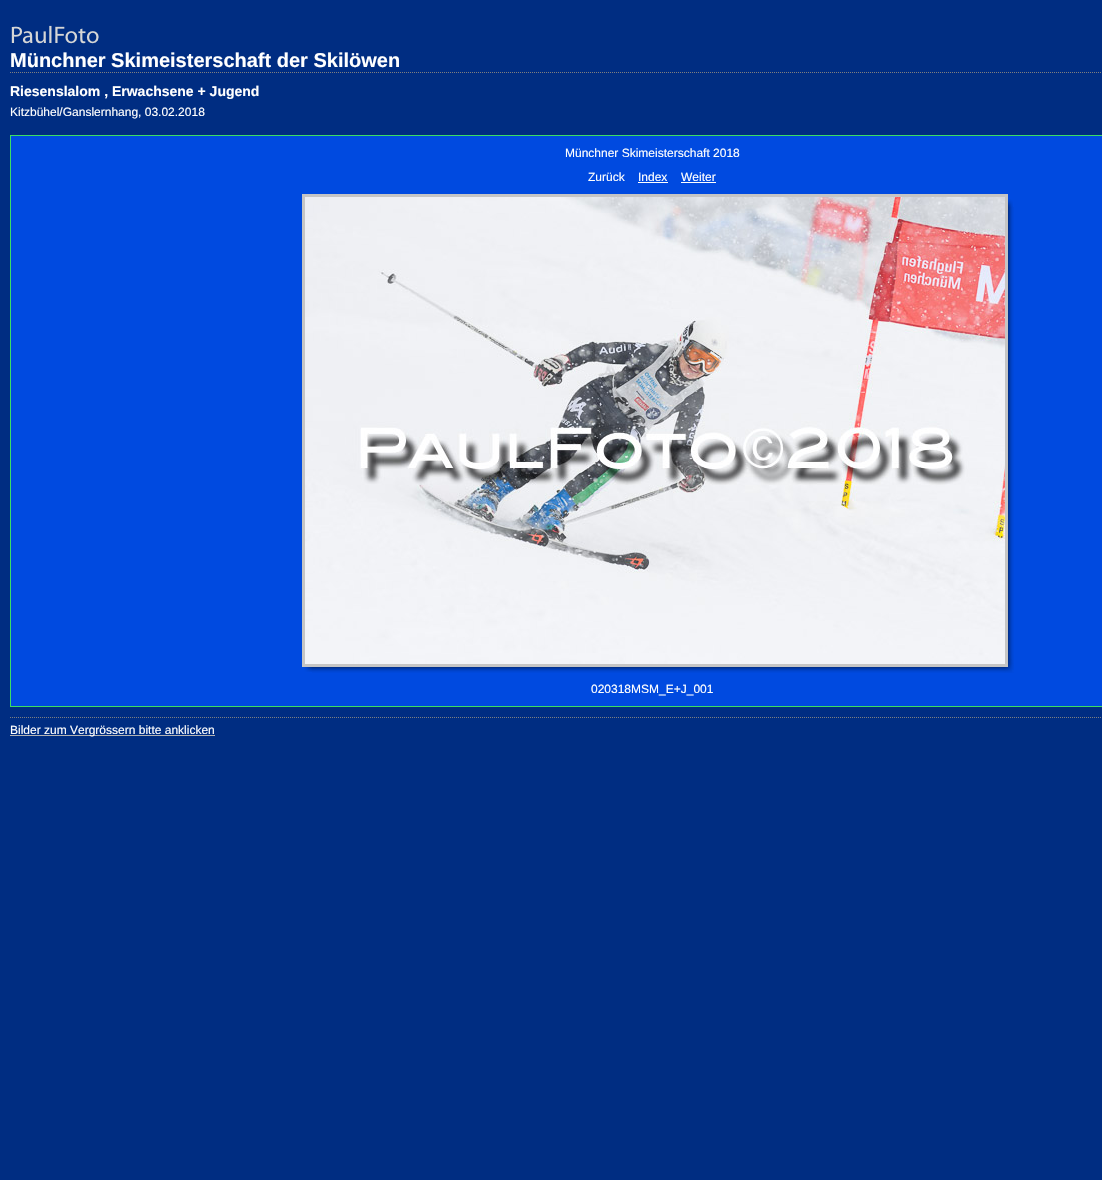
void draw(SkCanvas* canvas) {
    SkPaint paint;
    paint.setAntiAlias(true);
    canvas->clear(0xFF002D82);
    canvas->drawImageRect(SkImages::DeferredFromEncodedData(SkData::MakeFromFileName("img1.png")), SkRect::MakeXYWH(11, 25, 88, 19), SkSamplingOptions());
    paint.setStyle(SkPaint::kStroke_Style);
    paint.setStrokeWidth(1);
    paint.setColor(0xFF7F7F7F);
    paint.setPathEffect(SkDashPathEffect::Make({{1, 1}}, 0));
    canvas->drawPath(SkPathBuilder().moveTo(10, 72.5f).lineTo(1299, 72.5f).detach(), paint);
    paint.setPathEffect(nullptr);
    SkFont font1(fontMgr->matchFamilyStyle("Liberation Sans", SkFontStyle::Bold()), 20);
    font1.setSubpixel(true);
    paint.setStyle(SkPaint::kFill_Style);
    paint.setColor(0xFFFFFFFF);
    canvas->drawString("Münchner Skimeisterschaft der Skilöwen", 10, 67, font1, paint);
    SkFont font2(fontMgr->matchFamilyStyle("Liberation Sans", SkFontStyle::Bold()), 14);
    font2.setSubpixel(true);
    canvas->drawString("Riesenslalom , Erwachsene + Jugend", 10, 96, font2, paint);
    SkFont font3(fontMgr->matchFamilyStyle("Liberation Sans", SkFontStyle::Normal()), 12);
    font3.setSubpixel(true);
    canvas->drawString("Kitzbühel/Ganslernhang, 03.02.2018", 10, 116, font3, paint);
    paint.setStyle(SkPaint::kStroke_Style);
    paint.setColor(0xFF7F7F7F);
    paint.setPathEffect(SkDashPathEffect::Make({{1, 1}}, 0));
    canvas->drawPath(SkPathBuilder().moveTo(10, 717.5f).lineTo(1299, 717.5f).detach(), paint);
    paint.setPathEffect(nullptr);
    paint.setStyle(SkPaint::kFill_Style);
    paint.setColor(0xFF004AE0);
    canvas->drawRect(SkRect::MakeXYWH(10.5f, 135.5f, 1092, 571), paint);
    paint.setStyle(SkPaint::kStroke_Style);
    paint.setColor(0xFF3CDD64);
    canvas->drawRect(SkRect::MakeXYWH(10.5f, 135.5f, 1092, 571), paint);
    paint.setStyle(SkPaint::kFill_Style);
    paint.setColor(0xFFFFFFFF);
    canvas->drawString("Münchner Skimeisterschaft 2018", 565, 157, font3, paint);
    canvas->drawString("Zurück", 588, 181, font3, paint);
    canvas->drawString("Index", 638, 181, font3, paint);
    canvas->drawRect(SkRect::MakeXYWH(638, 182, 30, 1), paint);
    canvas->drawString("Weiter", 681, 181, font3, paint);
    canvas->drawRect(SkRect::MakeXYWH(681, 182, 35, 1), paint);
    canvas->drawImageRect(SkImages::DeferredFromEncodedData(SkData::MakeFromFileName("img2.png")), SkRect::MakeXYWH(312, 207, 702, 466), SkSamplingOptions());
    paint.setStyle(SkPaint::kStroke_Style);
    paint.setStrokeWidth(3);
    paint.setColor(0xFFC5C5C5);
    canvas->drawRect(SkRect::MakeXYWH(303.5f, 195.5f, 703, 470), paint);
    canvas->drawImageRect(SkImages::DeferredFromEncodedData(SkData::MakeFromFileName("img3.png")), SkRect::MakeXYWH(305, 197, 700, 467), SkSamplingOptions());
    canvas->drawImageRect(SkImages::DeferredFromEncodedData(SkData::MakeFromFileName("img4.png")), SkRect::MakeXYWH(1008, 199, 5, 8), SkSamplingOptions());
    canvas->drawImageRect(SkImages::DeferredFromEncodedData(SkData::MakeFromFileName("img5.png")), SkRect::MakeXYWH(304, 667, 8, 5), SkSamplingOptions());
    paint.setStyle(SkPaint::kFill_Style);
    paint.setColor(0xFFFFFFFF);
    canvas->drawString("020318MSM_E+J_001", 591, 693, font3, paint);
    paint.setColor(0xFFB3B3B3);
    canvas->drawRect(SkRect::MakeXYWH(10, 735, 205, 1), paint);
    paint.setColor(0xFFFFFFFF);
    canvas->drawString("Bilder zum Vergrössern bitte anklicken", 10, 734, font3, paint);
}
